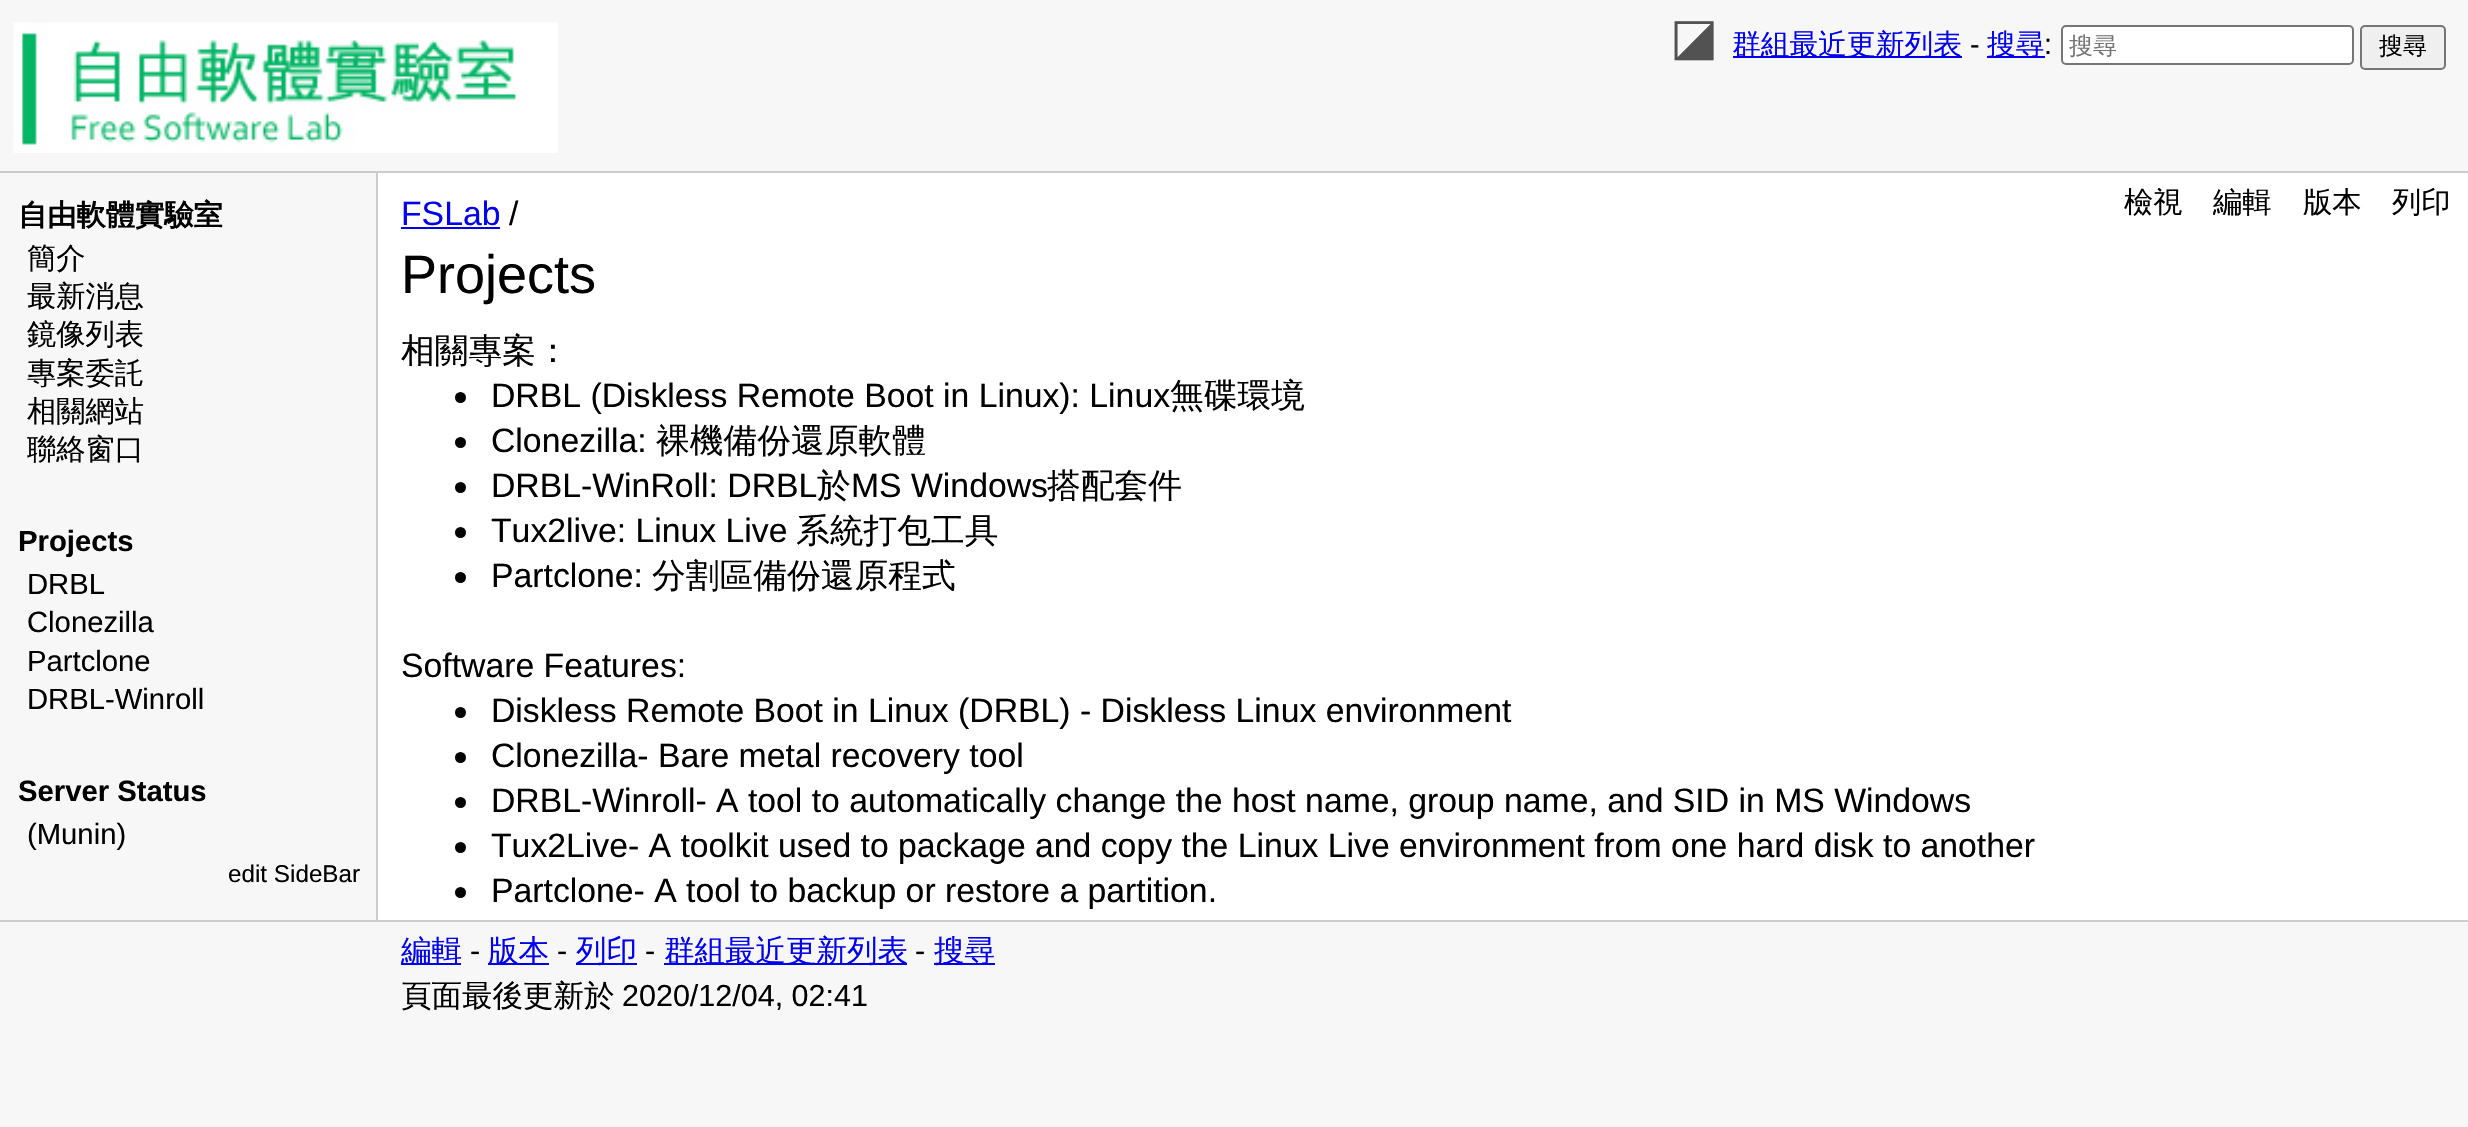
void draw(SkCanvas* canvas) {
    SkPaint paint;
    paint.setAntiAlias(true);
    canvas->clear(0xFFF7F7F7);
    paint.setColor(0xFFCCCCCC);
    canvas->drawRect(SkRect::MakeXYWH(0, 171, 2468, 2), paint);
    canvas->drawImageRect(SkImages::DeferredFromEncodedData(SkData::MakeFromFileName("img1.png")), SkRect::MakeXYWH(13, 22, 545, 131), SkSamplingOptions());
    SkFont font1(fontMgr->matchFamilyStyle("DejaVu Sans", SkFontStyle::Normal()), 51);
    font1.setSubpixel(true);
    paint.setColor(0xFF525252);
    canvas->drawString("◪", 1670, 54, font1, paint);
    paint.setColor(0xFF0000EE);
    canvas->drawRect(SkRect::MakeXYWH(1733, 56, 229, 2), paint);
    SkFont font2(fontMgr->matchFamilyStyle("WenQuanYi Zen Hei", SkFontStyle(500, SkFontStyle::kNormal_Width, SkFontStyle::kUpright_Slant)), 28.75f);
    font2.setSubpixel(true);
    canvas->drawString("群組最近更新列表", 1732, 54, font2, paint);
    SkFont font3(fontMgr->matchFamilyStyle("Liberation Sans", SkFontStyle::Normal()), 28.75f);
    font3.setSubpixel(true);
    paint.setColor(0xFF000000);
    canvas->drawString("-", 1970, 54, font3, paint);
    paint.setColor(0xFF0000EE);
    canvas->drawRect(SkRect::MakeXYWH(1987, 56, 58, 2), paint);
    canvas->drawString("搜尋", 1987, 54, font2, paint);
    paint.setColor(0xFF000000);
    canvas->drawString(":", 2044, 54, font3, paint);
    paint.setColor(0xFFFFFFFF);
    canvas->drawRoundRect(SkRect::MakeXYWH(2062, 26, 291, 38), 4, 4, paint);
    paint.setStyle(SkPaint::kStroke_Style);
    paint.setStrokeWidth(2);
    paint.setColor(0xFF767676);
    canvas->drawRoundRect(SkRect::MakeXYWH(2062, 26, 291, 38), 4, 4, paint);
    SkFont font4(fontMgr->matchFamilyStyle("WenQuanYi Zen Hei", SkFontStyle(500, SkFontStyle::kNormal_Width, SkFontStyle::kUpright_Slant)), 24);
    font4.setSubpixel(true);
    paint.setStyle(SkPaint::kFill_Style);
    paint.setColor(0xFF757575);
    canvas->drawString("搜尋", 2069, 54, font4, paint);
    paint.setColor(0xFFEFEFEF);
    canvas->drawRoundRect(SkRect::MakeXYWH(2361, 26, 84, 43), 4, 4, paint);
    paint.setStyle(SkPaint::kStroke_Style);
    paint.setColor(0xFF767676);
    canvas->drawRoundRect(SkRect::MakeXYWH(2361, 26, 84, 43), 4, 4, paint);
    paint.setStyle(SkPaint::kFill_Style);
    paint.setColor(0xFF000000);
    canvas->drawString("搜尋", 2379, 54, font4, paint);
    paint.setColor(0xFFCCCCCC);
    canvas->drawRect(SkRect::MakeXYWH(376, 173, 2, 747), paint);
    SkFont font5(fontMgr->matchFamilyStyle("WenQuanYi Zen Hei", SkFontStyle::Bold()), 29.25f);
    font5.setSubpixel(true);
    paint.setColor(0xFF000000);
    canvas->drawString("自由軟體實驗室", 18, 225, font5, paint);
    SkFont font6(fontMgr->matchFamilyStyle("WenQuanYi Zen Hei", SkFontStyle(500, SkFontStyle::kNormal_Width, SkFontStyle::kUpright_Slant)), 29.25f);
    font6.setSubpixel(true);
    canvas->drawString("簡介", 27, 268, font6, paint);
    canvas->drawString("最新消息", 27, 306, font6, paint);
    canvas->drawString("鏡像列表", 27, 344, font6, paint);
    canvas->drawString("專案委託", 27, 383, font6, paint);
    canvas->drawString("相關網站", 27, 421, font6, paint);
    canvas->drawString("聯絡窗口", 27, 459, font6, paint);
    SkFont font7(fontMgr->matchFamilyStyle("Liberation Sans", SkFontStyle::Bold()), 29.25f);
    font7.setSubpixel(true);
    canvas->drawString("Projects", 18, 551, font7, paint);
    SkFont font8(fontMgr->matchFamilyStyle("Liberation Sans", SkFontStyle::Normal()), 29.25f);
    font8.setSubpixel(true);
    canvas->drawString("DRBL", 27, 594, font8, paint);
    canvas->drawString("Clonezilla", 27, 632, font8, paint);
    canvas->drawString("Partclone", 27, 671, font8, paint);
    canvas->drawString("DRBL-Winroll", 27, 709, font8, paint);
    canvas->drawString("Server Status", 18, 801, font7, paint);
    canvas->drawString("(Munin)", 27, 844, font8, paint);
    SkFont font9(fontMgr->matchFamilyStyle("Liberation Sans", SkFontStyle::Normal()), 24.25f);
    font9.setSubpixel(true);
    canvas->drawString("edit SideBar", 228, 882, font9, paint);
    paint.setColor(0xFFFFFFFF);
    canvas->drawRect(SkRect::MakeXYWH(378, 173, 2090, 747), paint);
    SkFont font10(fontMgr->matchFamilyStyle("Liberation Sans", SkFontStyle::Normal()), 33.75f);
    font10.setSubpixel(true);
    paint.setColor(0xFF0000EE);
    canvas->drawString("FSLab", 401, 225, font10, paint);
    canvas->drawRect(SkRect::MakeXYWH(401, 227, 99, 2), paint);
    paint.setColor(0xFF000000);
    canvas->drawString("/", 509, 225, font10, paint);
    SkFont font11(fontMgr->matchFamilyStyle("Liberation Sans", SkFontStyle::Normal()), 54);
    font11.setSubpixel(true);
    canvas->drawString("Projects", 401, 293, font11, paint);
    canvas->drawString("檢視", 2124, 212, font6, paint);
    canvas->drawString("編輯", 2213, 212, font6, paint);
    canvas->drawString("版本", 2303, 212, font6, paint);
    canvas->drawString("列印", 2392, 212, font6, paint);
    SkFont font12(fontMgr->matchFamilyStyle("WenQuanYi Zen Hei", SkFontStyle(500, SkFontStyle::kNormal_Width, SkFontStyle::kUpright_Slant)), 33.75f);
    font12.setSubpixel(true);
    canvas->drawString("相關專案：", 401, 362, font12, paint);
    canvas->drawCircle(460.5f, 397.5f, 5.5f, paint);
    canvas->drawString("DRBL (Diskless Remote Boot in Linux): Linux", 491, 407, font10, paint);
    canvas->drawString("無碟環境", 1170, 407, font12, paint);
    canvas->drawCircle(460.5f, 442.5f, 5.5f, paint);
    canvas->drawString("Clonezilla:", 491, 452, font10, paint);
    canvas->drawString("裸機備份還原軟體", 656, 452, font12, paint);
    canvas->drawCircle(460.5f, 487.5f, 5.5f, paint);
    canvas->drawString("DRBL-WinRoll: DRBL", 491, 497, font10, paint);
    canvas->drawString("於", 817, 497, font12, paint);
    canvas->drawString("MS Windows", 851, 497, font10, paint);
    canvas->drawString("搭配套件", 1047, 497, font12, paint);
    canvas->drawCircle(460.5f, 532.5f, 5.5f, paint);
    canvas->drawString("Tux2live: Linux Live", 491, 542, font10, paint);
    canvas->drawString("系統打包工具", 796, 542, font12, paint);
    canvas->drawCircle(460.5f, 577.5f, 5.5f, paint);
    canvas->drawString("Partclone:", 491, 587, font10, paint);
    canvas->drawString("分割區備份還原程式", 652, 587, font12, paint);
    canvas->drawString("Software Features:", 401, 677, font10, paint);
    canvas->drawCircle(460.5f, 712.5f, 5.5f, paint);
    canvas->drawString("Diskless Remote Boot in Linux (DRBL) - Diskless Linux environment", 491, 722, font10, paint);
    canvas->drawCircle(460.5f, 757.5f, 5.5f, paint);
    canvas->drawString("Clonezilla- Bare metal recovery tool", 491, 767, font10, paint);
    canvas->drawCircle(460.5f, 802.5f, 5.5f, paint);
    canvas->drawString("DRBL-Winroll- A tool to automatically change the host name, group name, and SID in MS Windows", 491, 812, font10, paint);
    canvas->drawCircle(460.5f, 847.5f, 5.5f, paint);
    canvas->drawString("Tux2Live- A toolkit used to package and copy the Linux Live environment from one hard disk to another", 491, 857, font10, paint);
    canvas->drawCircle(460.5f, 892.5f, 5.5f, paint);
    canvas->drawString("Partclone- A tool to backup or restore a partition.", 491, 902, font10, paint);
    paint.setColor(0xFFCCCCCC);
    canvas->drawRect(SkRect::MakeXYWH(0, 920, 2468, 2), paint);
    paint.setColor(0xFF0000EE);
    canvas->drawRect(SkRect::MakeXYWH(401, 963, 60, 2), paint);
    SkFont font13(fontMgr->matchFamilyStyle("WenQuanYi Zen Hei", SkFontStyle(500, SkFontStyle::kNormal_Width, SkFontStyle::kUpright_Slant)), 30.5f);
    font13.setSubpixel(true);
    canvas->drawString("編輯", 401, 961, font13, paint);
    SkFont font14(fontMgr->matchFamilyStyle("Liberation Sans", SkFontStyle::Normal()), 30.5f);
    font14.setSubpixel(true);
    paint.setColor(0xFF000000);
    canvas->drawString("-", 470, 961, font14, paint);
    paint.setColor(0xFF0000EE);
    canvas->drawRect(SkRect::MakeXYWH(488, 963, 61, 2), paint);
    canvas->drawString("版本", 488, 961, font13, paint);
    paint.setColor(0xFF000000);
    canvas->drawString("-", 557, 961, font14, paint);
    paint.setColor(0xFF0000EE);
    canvas->drawRect(SkRect::MakeXYWH(576, 963, 61, 2), paint);
    canvas->drawString("列印", 576, 961, font13, paint);
    paint.setColor(0xFF000000);
    canvas->drawString("-", 645, 961, font14, paint);
    paint.setColor(0xFF0000EE);
    canvas->drawRect(SkRect::MakeXYWH(664, 963, 243, 2), paint);
    canvas->drawString("群組最近更新列表", 664, 961, font13, paint);
    paint.setColor(0xFF000000);
    canvas->drawString("-", 915, 961, font14, paint);
    paint.setColor(0xFF0000EE);
    canvas->drawRect(SkRect::MakeXYWH(934, 963, 61, 2), paint);
    canvas->drawString("搜尋", 934, 961, font13, paint);
    paint.setColor(0xFF000000);
    canvas->drawString("頁面最後更新於", 401, 1006, font13, paint);
    canvas->drawString("2020/12/04, 02:41", 622, 1006, font14, paint);
}
